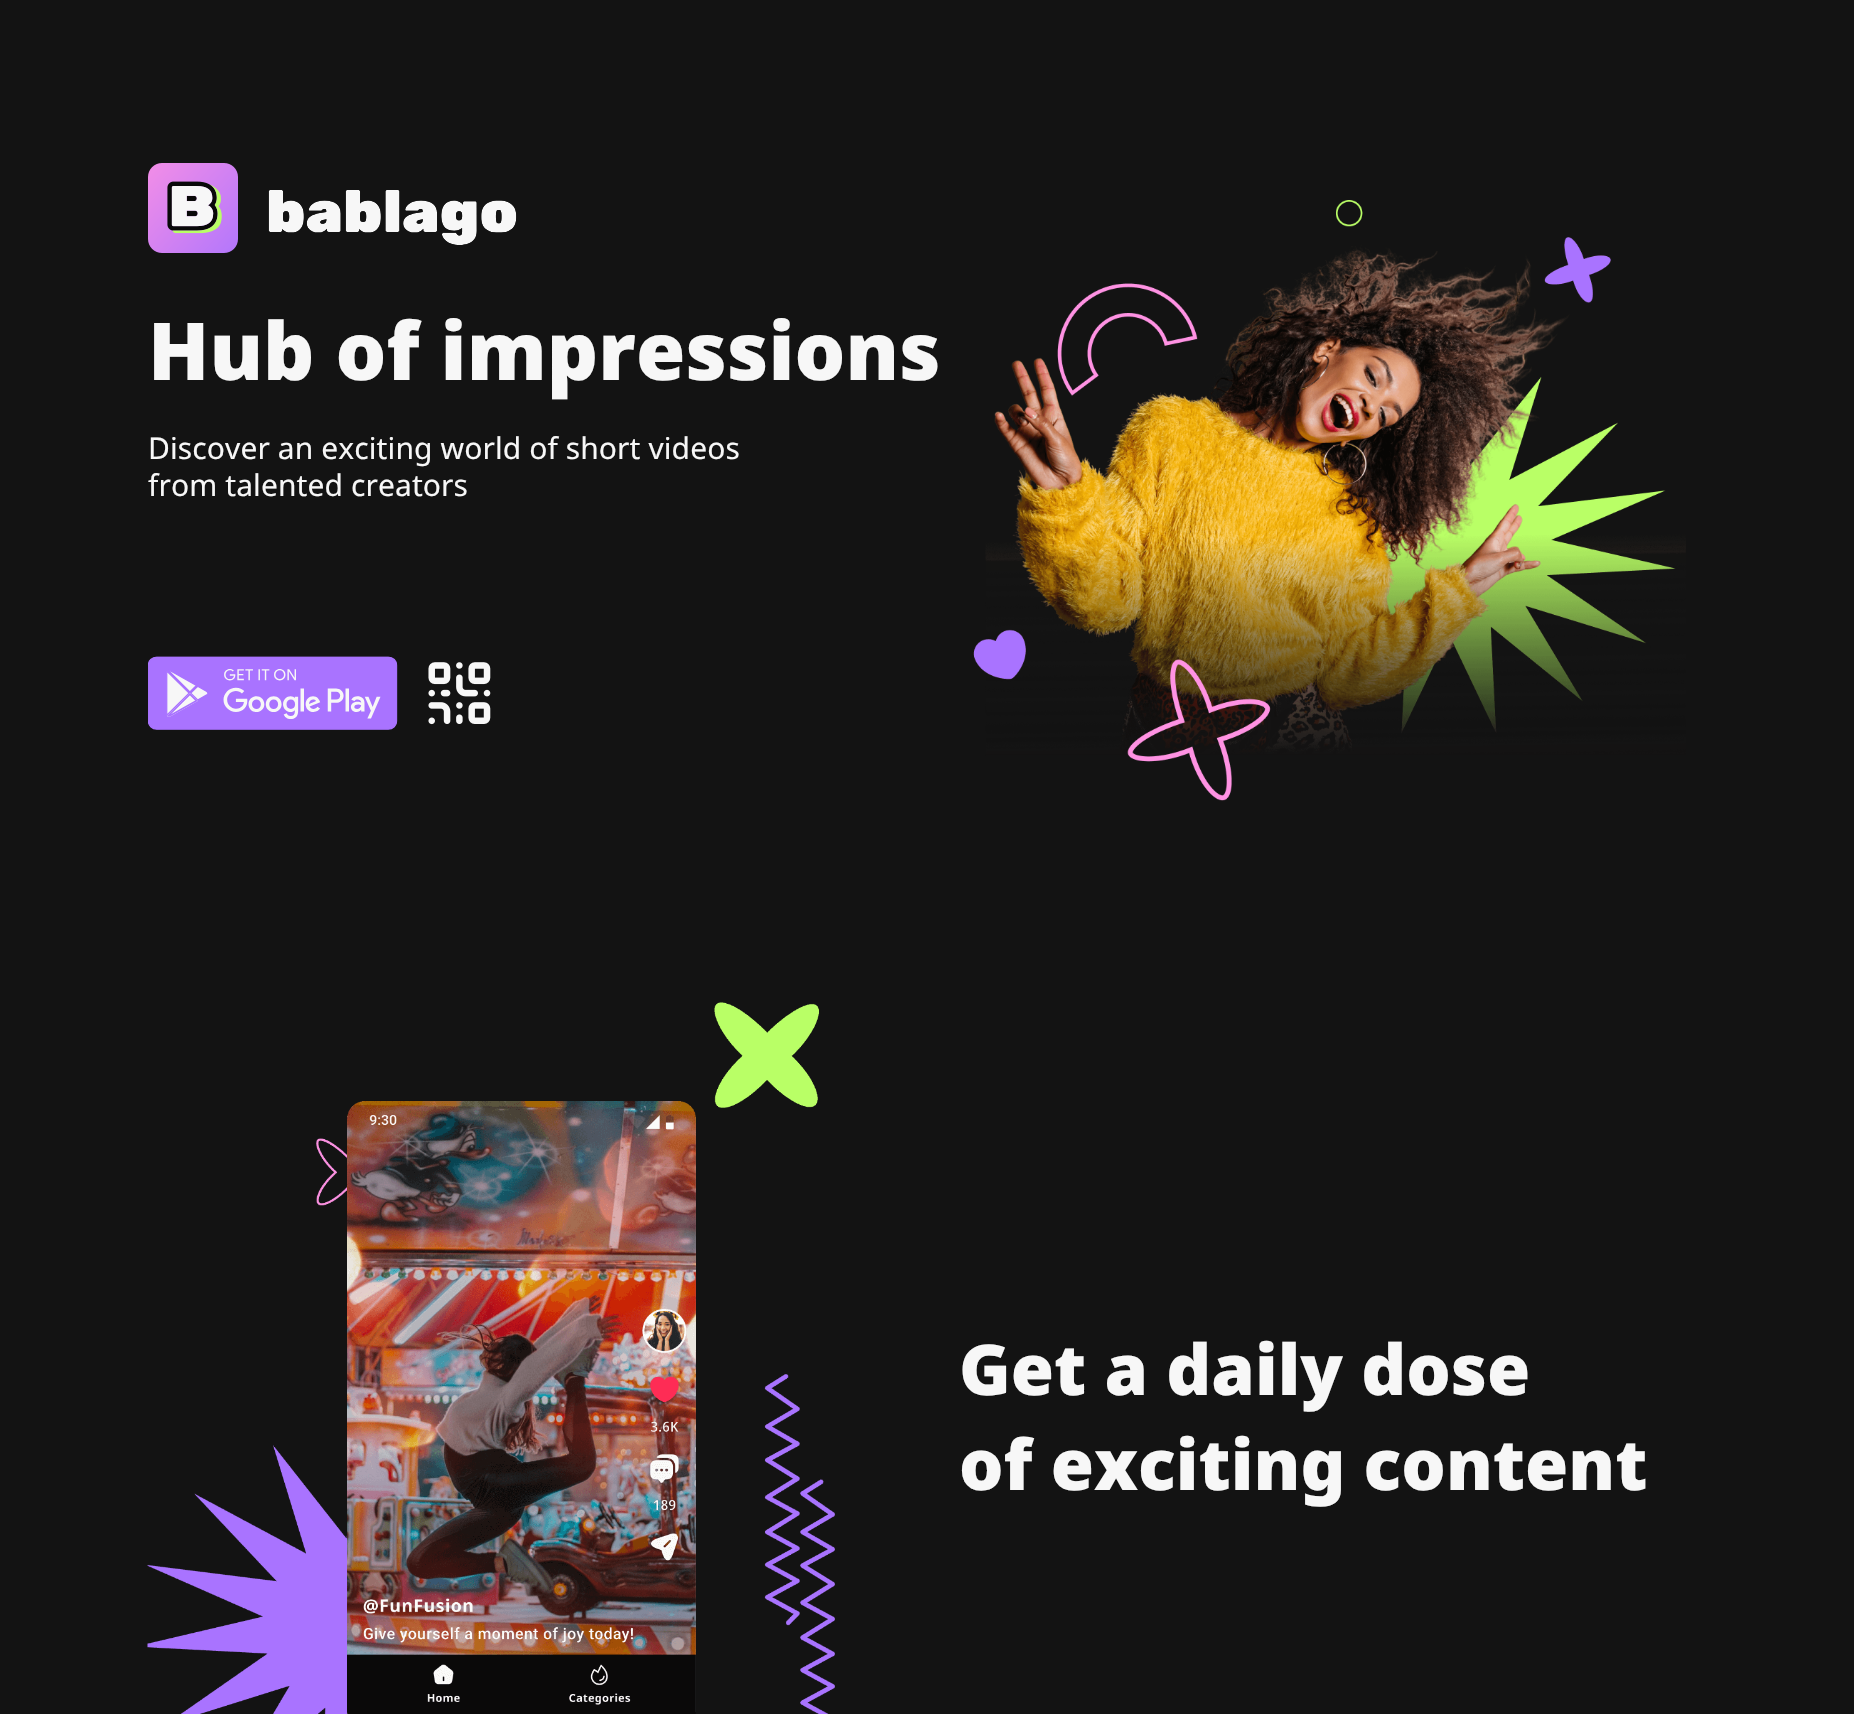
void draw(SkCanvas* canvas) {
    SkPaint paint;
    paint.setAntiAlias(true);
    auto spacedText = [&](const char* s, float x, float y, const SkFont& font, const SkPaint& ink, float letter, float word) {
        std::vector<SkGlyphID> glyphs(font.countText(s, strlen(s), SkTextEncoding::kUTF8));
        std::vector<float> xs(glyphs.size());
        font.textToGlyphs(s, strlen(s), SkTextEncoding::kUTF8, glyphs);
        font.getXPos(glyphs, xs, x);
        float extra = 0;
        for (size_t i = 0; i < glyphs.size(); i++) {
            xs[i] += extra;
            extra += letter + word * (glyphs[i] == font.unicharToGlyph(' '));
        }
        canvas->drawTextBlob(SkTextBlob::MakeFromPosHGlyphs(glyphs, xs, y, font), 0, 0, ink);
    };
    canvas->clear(0xFF131313);
    canvas->drawImageRect(SkImages::DeferredFromEncodedData(SkData::MakeFromFileName("img1.png")), SkRect::MakeXYWH(148, 163, 90, 90), SkSamplingOptions());
    canvas->drawImageRect(SkImages::DeferredFromEncodedData(SkData::MakeFromFileName("img2.png")), SkRect::MakeXYWH(268, 190, 249, 55), SkSamplingOptions());
    SkFont font1(fontMgr->matchFamilyStyle("Noto Sans", SkFontStyle(900, SkFontStyle::kNormal_Width, SkFontStyle::kUpright_Slant)), 80);
    font1.setSubpixel(true);
    paint.setColor(0xFFF7F7F7);
    spacedText("Hub of impressions", 148, 380, font1, paint, 0.1f, 0);
    SkFont font2(fontMgr->matchFamilyStyle("Noto Sans", SkFontStyle::Normal()), 30);
    font2.setSubpixel(true);
    spacedText("Discover an exciting world of short videos", 148, 459, font2, paint, 0.1f, 0);
    spacedText("from talented creators", 148, 496, font2, paint, 0.1f, 0);
    canvas->drawImageRect(SkImages::DeferredFromEncodedData(SkData::MakeFromFileName("img3.png")), SkRect::MakeXYWH(973, 200, 713, 601), SkSamplingOptions());
    canvas->drawImageRect(SkImages::DeferredFromEncodedData(SkData::MakeFromFileName("img4.png")), SkRect::MakeXYWH(148, 656, 250, 74), SkSamplingOptions());
    canvas->drawImageRect(SkImages::DeferredFromEncodedData(SkData::MakeFromFileName("img5.png")), SkRect::MakeXYWH(428, 662, 63, 63), SkSamplingOptions());
    canvas->drawImageRect(SkImages::DeferredFromEncodedData(SkData::MakeFromFileName("img6.png")), SkRect::MakeXYWH(147, 1002, 688, 712), SkSamplingOptions());
    SkFont font3(fontMgr->matchFamilyStyle("Noto Sans", SkFontStyle(900, SkFontStyle::kNormal_Width, SkFontStyle::kUpright_Slant)), 70);
    font3.setSubpixel(true);
    canvas->drawString("Get a daily dose", 959, 1395, font3, paint);
    canvas->drawString("of exciting content", 959, 1490, font3, paint);
}
